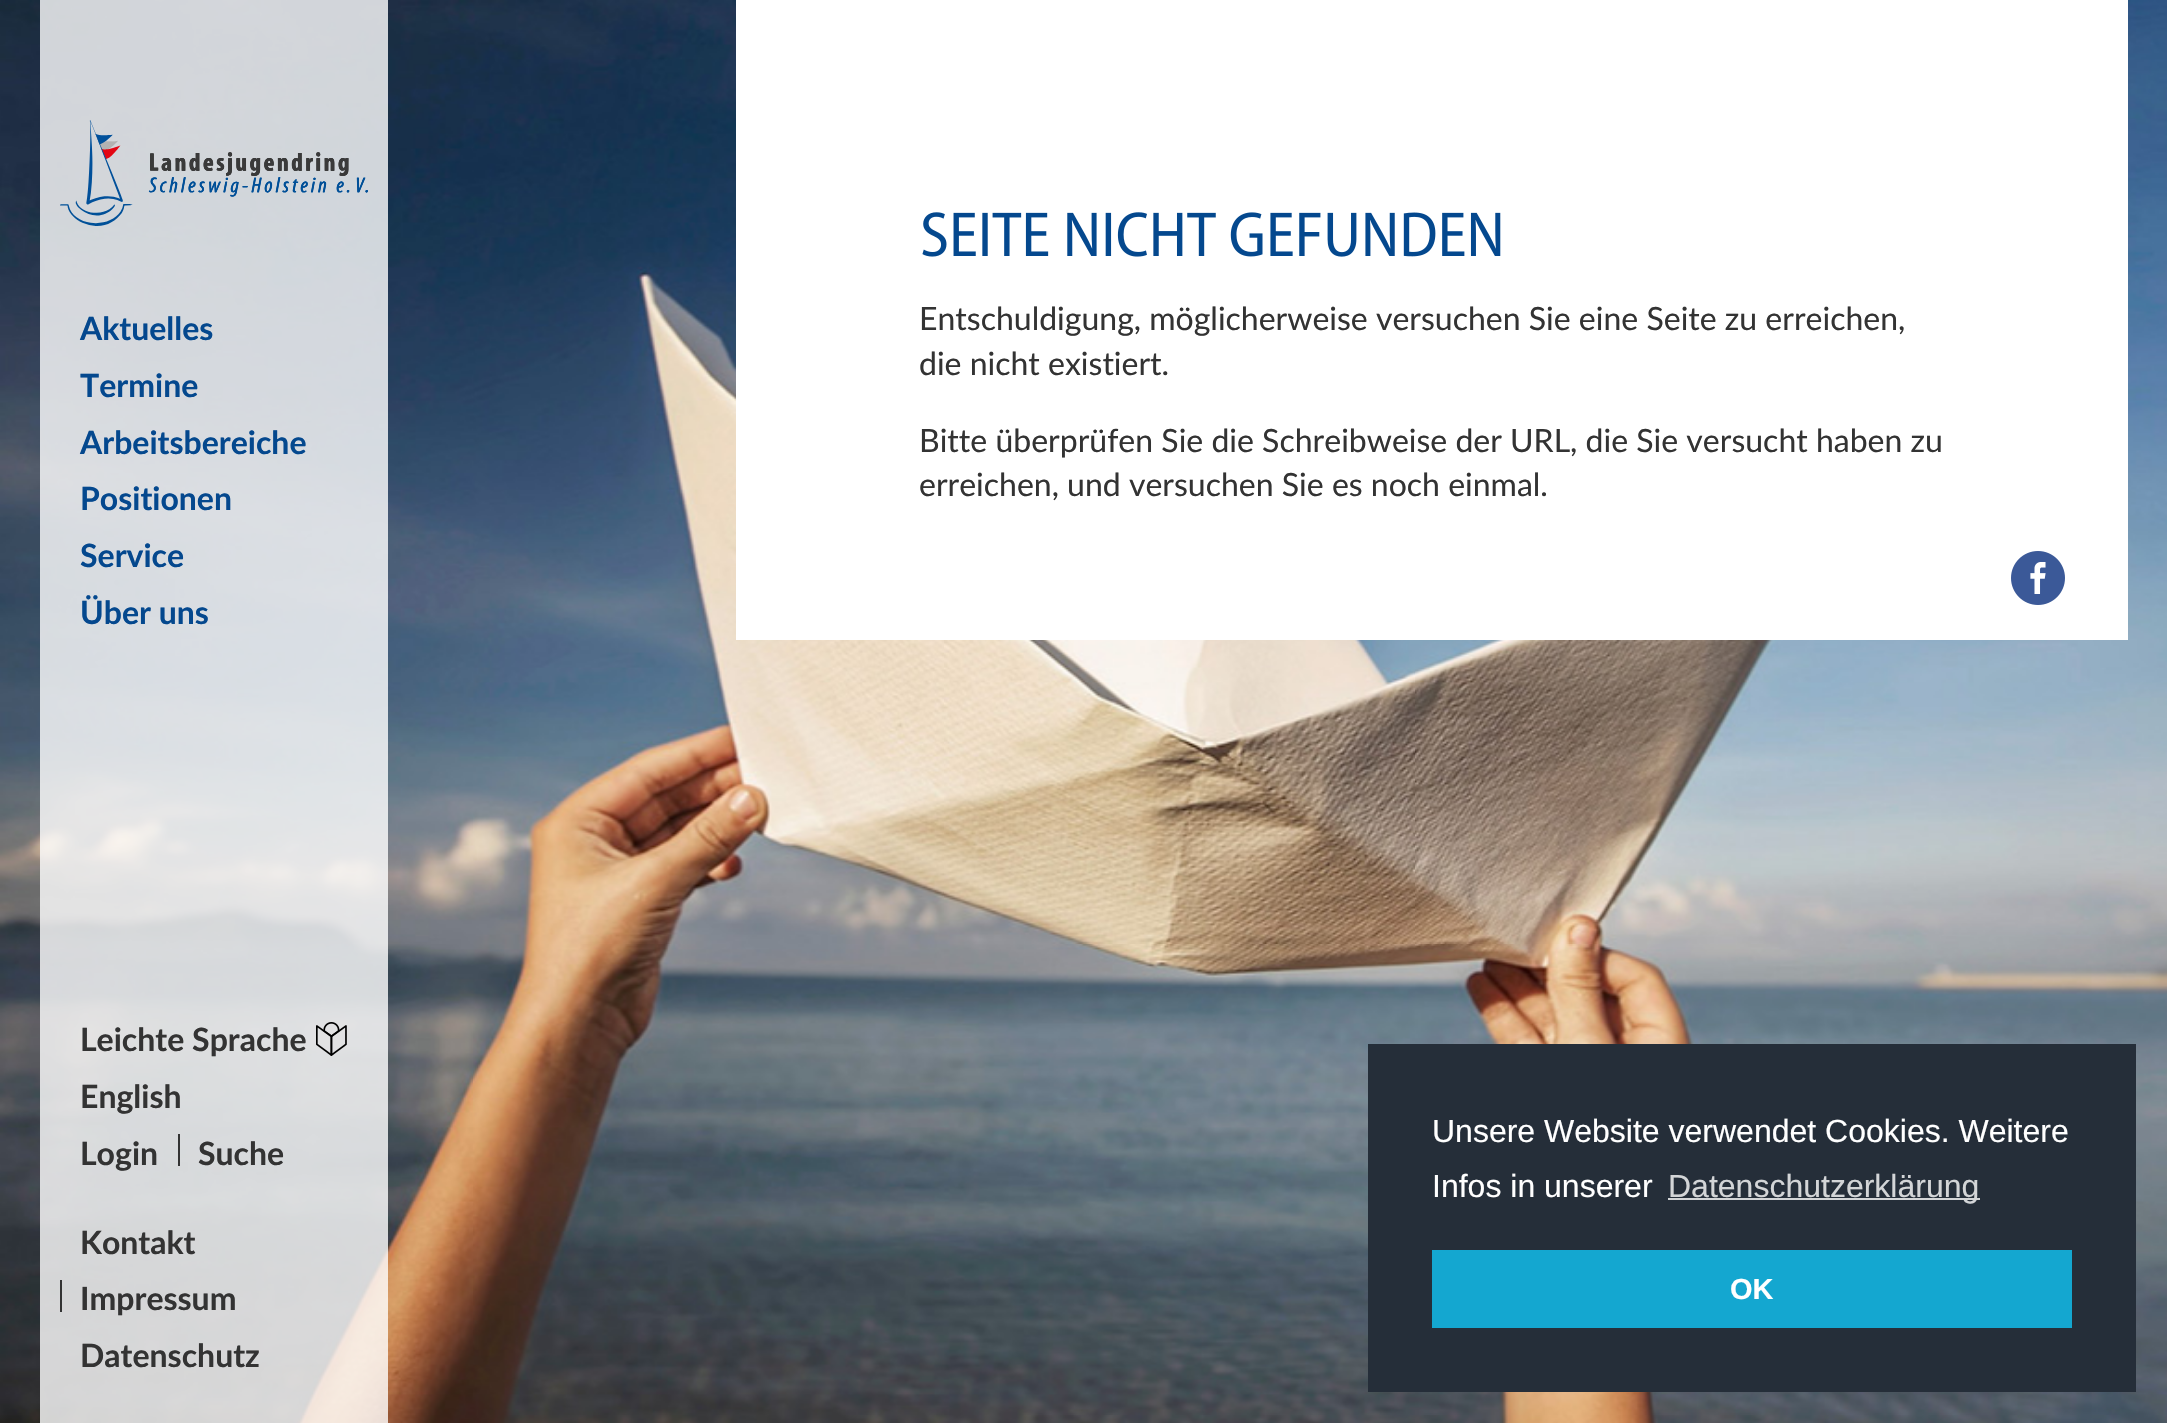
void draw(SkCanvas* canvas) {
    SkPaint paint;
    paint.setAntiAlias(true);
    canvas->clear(0xFFFFFFFF);
    canvas->drawImageRect(SkImages::DeferredFromEncodedData(SkData::MakeFromFileName("img1.png")), SkRect::MakeXYWH(0, 0, 2167, 1423), SkSamplingOptions());
    paint.setColor(0xCCFFFFFF);
    canvas->drawRect(SkRect::MakeXYWH(40, 0, 348, 1423), paint);
    canvas->drawImageRect(SkImages::DeferredFromEncodedData(SkData::MakeFromFileName("img2.png")), SkRect::MakeXYWH(60, 120, 308, 106), SkSamplingOptions());
    SkFont font1(fontMgr->matchFamilyStyle("Lato", SkFontStyle::Bold()), 32);
    font1.setSubpixel(true);
    paint.setColor(0xFF04488E);
    canvas->drawString("Aktuelles", 80, 340, font1, paint);
    canvas->drawString("Termine", 80, 397, font1, paint);
    canvas->drawString("Arbeitsbereiche", 80, 454, font1, paint);
    canvas->drawString("Positionen", 80, 510, font1, paint);
    canvas->drawString("Service", 80, 567, font1, paint);
    canvas->drawString("Über uns", 80, 624, font1, paint);
    canvas->drawImageRect(SkImages::DeferredFromEncodedData(SkData::MakeFromFileName("img3.png")), SkRect::MakeXYWH(316, 1022, 31, 34), SkSamplingOptions());
    paint.setColor(0xFF333333);
    canvas->drawString("Leichte Sprache", 80, 1051, font1, paint);
    canvas->drawString("English", 80, 1108, font1, paint);
    canvas->drawString("Login", 80, 1165, font1, paint);
    canvas->drawRect(SkRect::MakeXYWH(178, 1134, 2, 32), paint);
    canvas->drawString("Suche", 198, 1165, font1, paint);
    canvas->drawString("Kontakt", 80, 1254, font1, paint);
    canvas->drawRect(SkRect::MakeXYWH(60, 1280, 2, 32), paint);
    canvas->drawString("Impressum", 80, 1310, font1, paint);
    canvas->drawString("Datenschutz", 80, 1367, font1, paint);
    paint.setColor(0xFFFFFFFF);
    canvas->drawRect(SkRect::MakeXYWH(736, 0, 1392, 640), paint);
    canvas->drawImageRect(SkImages::DeferredFromEncodedData(SkData::MakeFromFileName("img4.png")), SkRect::MakeXYWH(922, 212, 579, 45), SkSamplingOptions());
    SkFont font2(fontMgr->matchFamilyStyle("Lato", SkFontStyle::Normal()), 32);
    font2.setSubpixel(true);
    paint.setColor(0xFF333333);
    canvas->drawString("Entschuldigung, möglicherweise versuchen Sie eine Seite zu erreichen,", 919, 330, font2, paint);
    canvas->drawString("die nicht existiert.", 919, 375, font2, paint);
    canvas->drawString("Bitte überprüfen Sie die Schreibweise der URL, die Sie versucht haben zu", 919, 452, font2, paint);
    canvas->drawString("erreichen, und versuchen Sie es noch einmal.", 919, 496, font2, paint);
    canvas->drawImageRect(SkImages::DeferredFromEncodedData(SkData::MakeFromFileName("img5.png")), SkRect::MakeXYWH(2011, 551, 54, 54), SkSamplingOptions());
    paint.setColor(0xFF252E39);
    canvas->drawRect(SkRect::MakeXYWH(1368, 1044, 768, 348), paint);
    SkFont font3(fontMgr->matchFamilyStyle("Liberation Sans", SkFontStyle::Normal()), 32);
    font3.setSubpixel(true);
    paint.setColor(0xFFFFFFFF);
    canvas->drawString("Unsere Website verwendet Cookies. Weitere", 1432, 1142, font3, paint);
    canvas->drawString("Infos in unserer", 1432, 1197, font3, paint);
    paint.setColor(0xFFD3D5D7);
    canvas->drawRect(SkRect::MakeXYWH(1668, 1198, 312, 2), paint);
    canvas->drawString("Datenschutzerklärung", 1668, 1197, font3, paint);
    paint.setColor(0xFF14A7D0);
    canvas->drawRect(SkRect::MakeXYWH(1432, 1250, 640, 78), paint);
    SkFont font4(fontMgr->matchFamilyStyle("Liberation Sans", SkFontStyle::Bold()), 29);
    font4.setSubpixel(true);
    paint.setColor(0xFFFFFFFF);
    canvas->drawString("OK", 1730, 1299, font4, paint);
}
